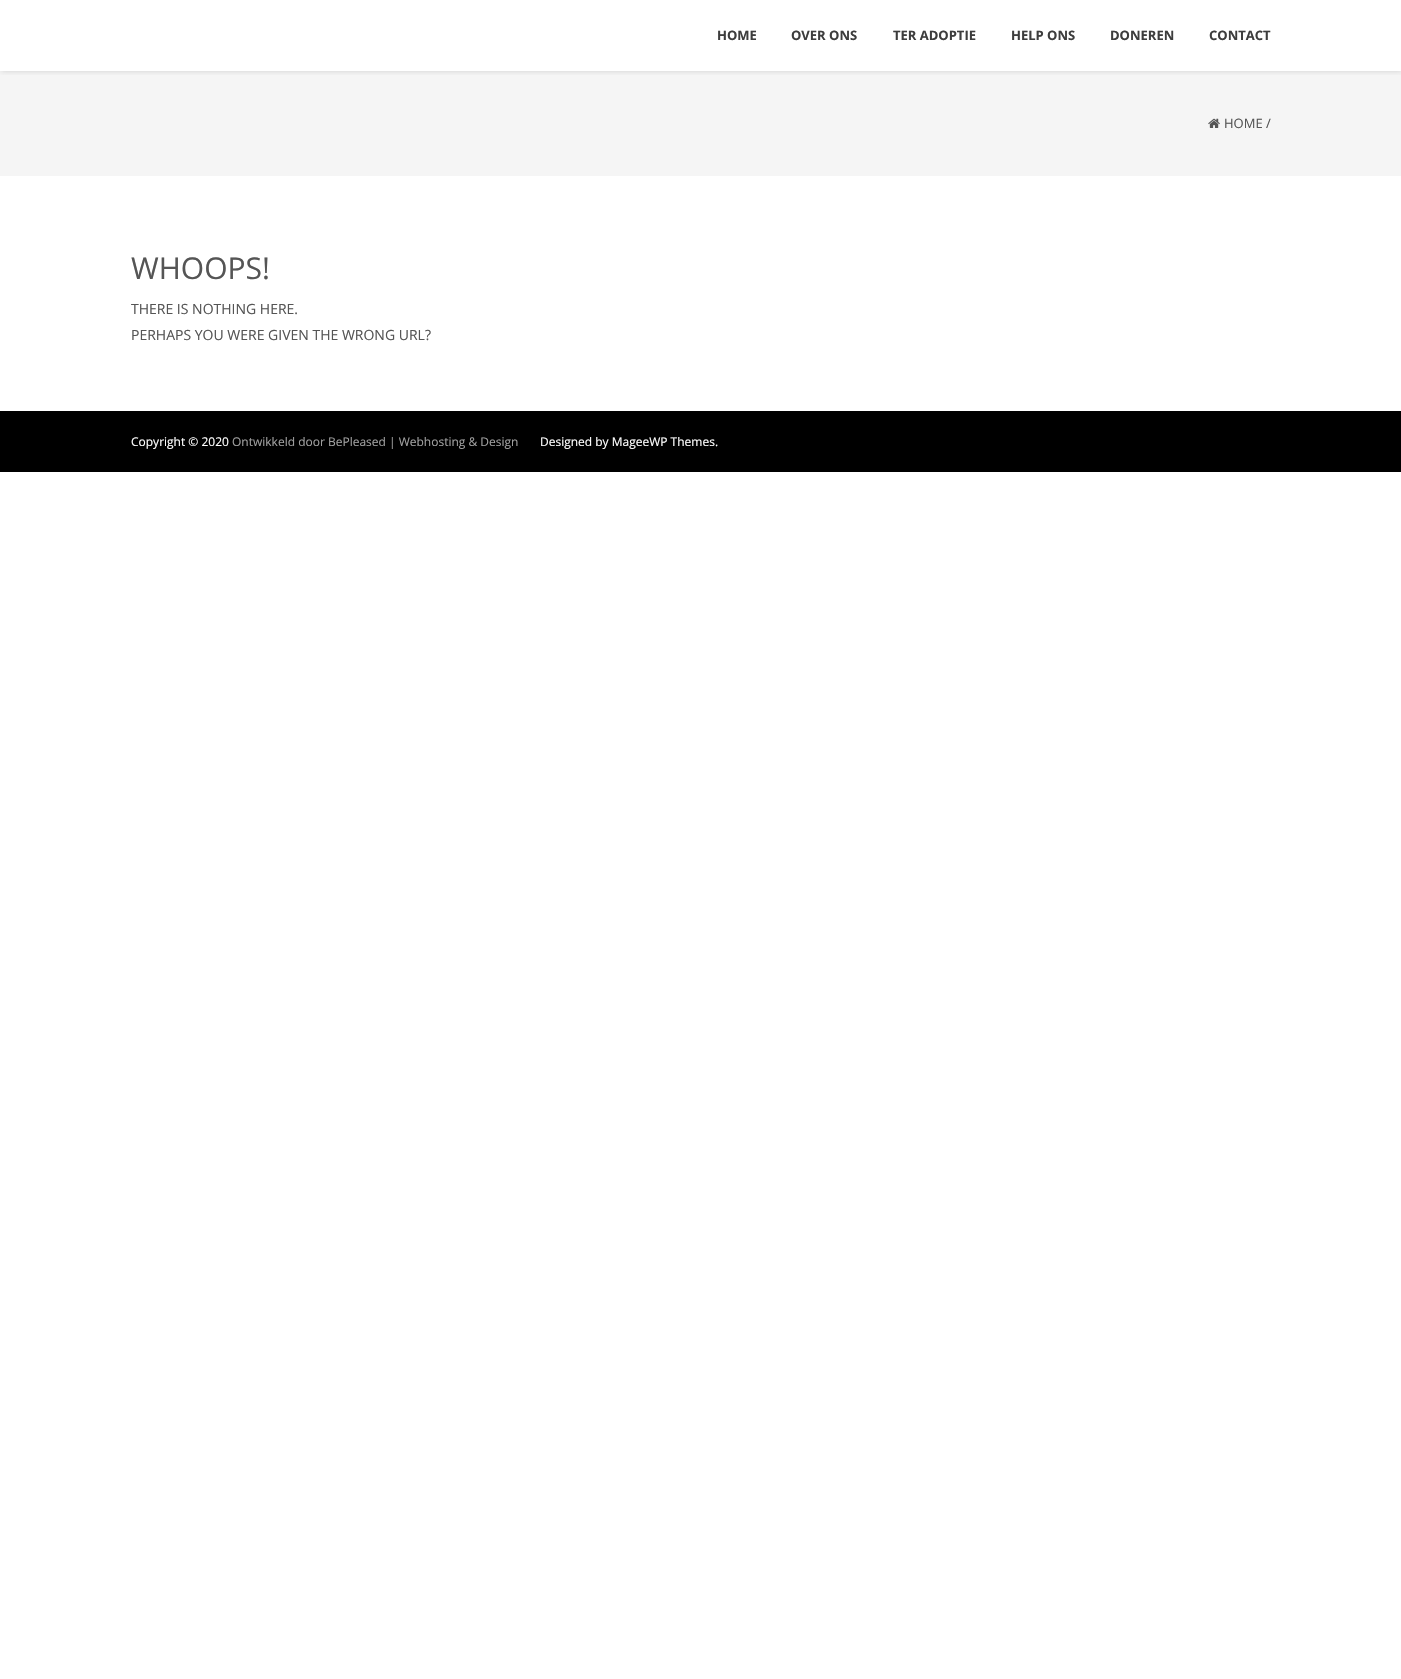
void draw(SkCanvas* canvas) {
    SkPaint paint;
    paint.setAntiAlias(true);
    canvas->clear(0xFFFFFFFF);
    paint.setColor(0xFFF5F5F5);
    canvas->drawRect(SkRect::MakeXYWH(0, 71, 1401, 105), paint);
    canvas->save();
    canvas->clipRect(SkRect::MakeXYWH(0, 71, 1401, 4));
    paint.setColor(0x33646464);
    paint.setMaskFilter(SkMaskFilter::MakeBlur(kNormal_SkBlurStyle, 2.5f));
    canvas->drawRect(SkRect::MakeXYWH(1, 1, 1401, 71), paint);
    paint.setMaskFilter(nullptr);
    canvas->restore();
    SkFont font1(fontMgr->matchFamilyStyle("Open Sans", SkFontStyle::Bold()), 13);
    font1.setSubpixel(true);
    paint.setColor(0xFF3D3D3D);
    canvas->drawString("HOME", 717, 40, font1, paint);
    canvas->drawString("OVER ONS", 791, 40, font1, paint);
    canvas->drawString("TER ADOPTIE", 893, 40, font1, paint);
    canvas->drawString("HELP ONS", 1011, 40, font1, paint);
    canvas->drawString("DONEREN", 1110, 40, font1, paint);
    canvas->drawString("CONTACT", 1209, 40, font1, paint);
    canvas->drawImageRect(SkImages::DeferredFromEncodedData(SkData::MakeFromFileName("img1.png")), SkRect::MakeXYWH(1208, 118, 12, 10), SkSamplingOptions());
    SkFont font2(fontMgr->matchFamilyStyle("Open Sans", SkFontStyle::Normal()), 13);
    font2.setSubpixel(true);
    paint.setColor(0xFF555555);
    canvas->drawString("HOME /", 1224, 128, font2, paint);
    SkFont font3(fontMgr->matchFamilyStyle("Open Sans", SkFontStyle::Normal()), 30);
    font3.setSubpixel(true);
    canvas->drawString("WHOOPS!", 131, 279, font3, paint);
    SkFont font4(fontMgr->matchFamilyStyle("Open Sans", SkFontStyle::Normal()), 14);
    font4.setSubpixel(true);
    canvas->drawString("THERE IS NOTHING HERE.", 131, 314, font4, paint);
    canvas->drawString("PERHAPS YOU WERE GIVEN THE WRONG URL?", 131, 340, font4, paint);
    paint.setColor(0xFF000000);
    canvas->drawRect(SkRect::MakeXYWH(0, 411, 1401, 61), paint);
    SkFont font5(fontMgr->matchFamilyStyle("Open Sans", SkFontStyle::Normal()), 12);
    font5.setSubpixel(true);
    paint.setColor(0xFFFFFFFF);
    canvas->drawString("Copyright © 2020", 131, 446, font5, paint);
    paint.setColor(0xFFA0A0A0);
    canvas->drawString("Ontwikkeld door BePleased | Webhosting & Design", 232, 446, font5, paint);
    paint.setColor(0xFFFFFFFF);
    canvas->drawString("Designed by MageeWP Themes.", 540, 446, font5, paint);
}
